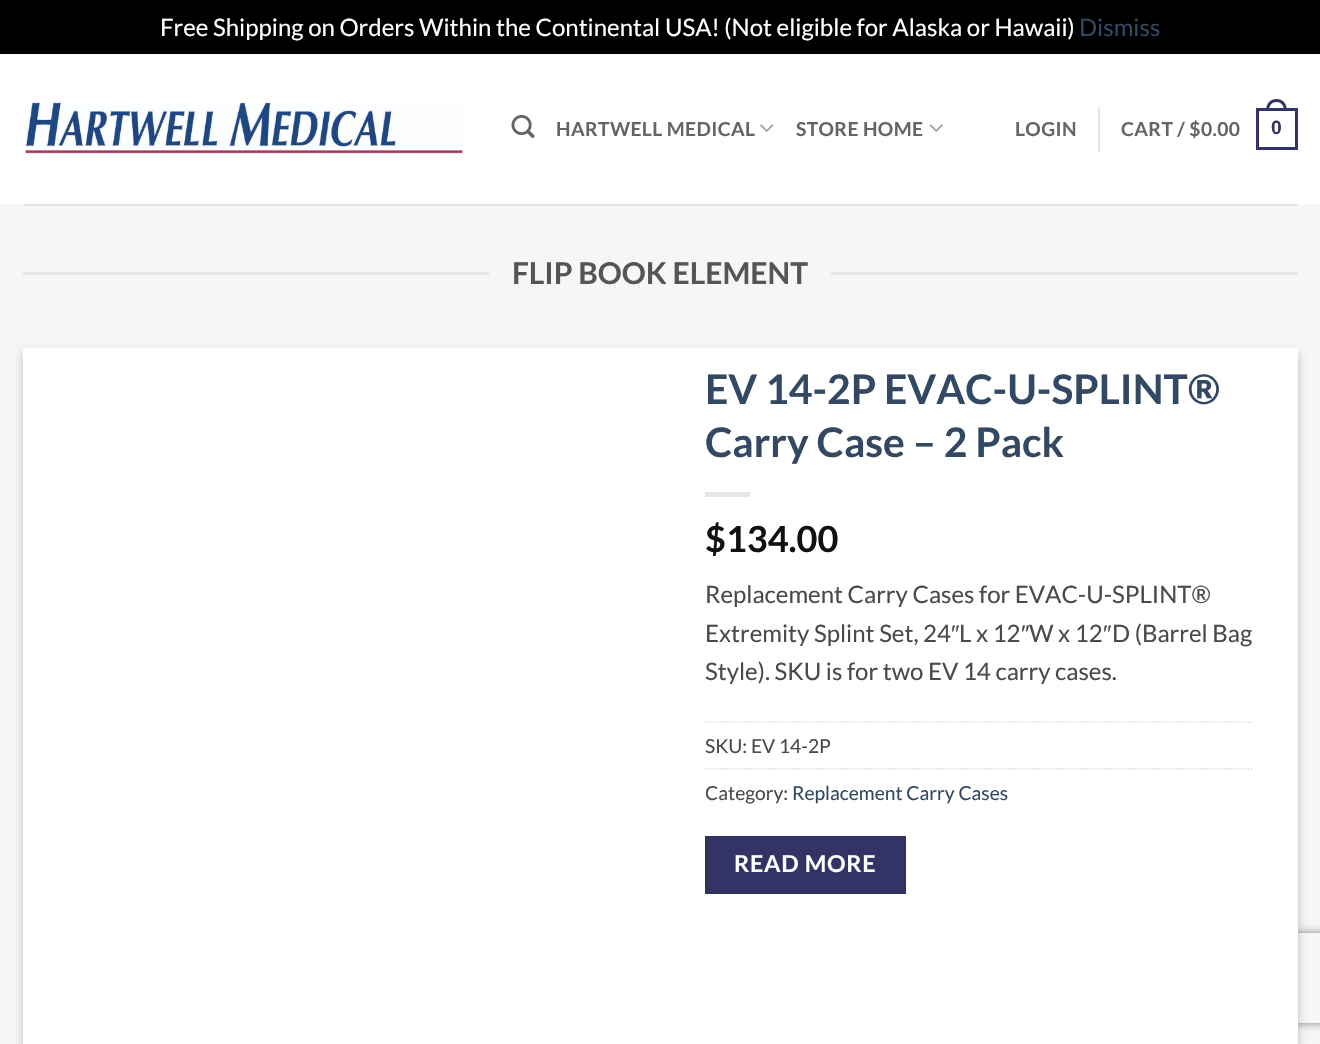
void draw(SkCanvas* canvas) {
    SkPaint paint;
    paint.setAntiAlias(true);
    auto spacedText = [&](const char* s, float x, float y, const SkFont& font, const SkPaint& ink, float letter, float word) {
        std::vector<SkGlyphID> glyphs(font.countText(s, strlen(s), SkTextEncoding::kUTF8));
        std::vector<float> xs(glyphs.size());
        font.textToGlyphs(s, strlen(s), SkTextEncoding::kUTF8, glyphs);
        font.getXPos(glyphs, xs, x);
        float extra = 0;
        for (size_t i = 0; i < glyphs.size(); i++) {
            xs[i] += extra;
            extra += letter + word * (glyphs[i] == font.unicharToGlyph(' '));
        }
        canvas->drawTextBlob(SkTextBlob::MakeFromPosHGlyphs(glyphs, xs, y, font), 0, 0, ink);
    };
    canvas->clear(0xFF000000);
    SkFont font1(fontMgr->matchFamilyStyle("Lato", SkFontStyle::Normal()), 24);
    font1.setSubpixel(true);
    paint.setColor(0xFFFFFFFF);
    canvas->drawString("Free Shipping on Orders Within the Continental USA! (Not eligible for Alaska or Hawaii)", 160, 36, font1, paint);
    paint.setColor(0xFF334862);
    canvas->drawString("Dismiss", 1079, 36, font1, paint);
    paint.setColor(0xFFFFFFFF);
    canvas->drawRect(SkRect::MakeXYWH(0, 54, 1320, 150), paint);
    canvas->drawImageRect(SkImages::DeferredFromEncodedData(SkData::MakeFromFileName("img1.png")), SkRect::MakeXYWH(25, 102, 439, 53), SkSamplingOptions());
    canvas->drawImageRect(SkImages::DeferredFromEncodedData(SkData::MakeFromFileName("img2.png")), SkRect::MakeXYWH(511, 114, 24, 24), SkSamplingOptions());
    SkFont font2(fontMgr->matchFamilyStyle("Lato", SkFontStyle::Bold()), 19.25f);
    font2.setSubpixel(true);
    paint.setColor(0xFF656565);
    spacedText("HARTWELL MEDICAL", 556, 136, font2, paint, 0.4f, 0);
    canvas->drawImageRect(SkImages::DeferredFromEncodedData(SkData::MakeFromFileName("img3.png")), SkRect::MakeXYWH(760, 124, 14, 8), SkSamplingOptions());
    spacedText("STORE HOME", 796, 136, font2, paint, 0.4f, 0);
    canvas->drawImageRect(SkImages::DeferredFromEncodedData(SkData::MakeFromFileName("img4.png")), SkRect::MakeXYWH(929, 124, 14, 8), SkSamplingOptions());
    spacedText("LOGIN", 1015, 136, font2, paint, 0.4f, 0);
    paint.setColor(0xFFE6E6E6);
    canvas->drawRect(SkRect::MakeXYWH(1098, 107, 2, 45), paint);
    paint.setColor(0xFF656565);
    spacedText("CART / $0.00", 1121, 136, font2, paint, 0.4f, 0);
    paint.setStyle(SkPaint::kStroke_Style);
    paint.setStrokeWidth(3);
    paint.setColor(0xFF333366);
    canvas->drawRect(SkRect::MakeXYWH(1257.5f, 109.5f, 39, 39), paint);
    paint.setStyle(SkPaint::kFill_Style);
    canvas->drawPath(SkPathBuilder(SkPathFillType::kEvenOdd).moveTo(1276.5f, 99).cubicTo(1283.5f, 99, 1287, 104.5f, 1287, 111).lineTo(1266, 111).cubicTo(1266, 104.5f, 1269.5f, 99, 1276.5f, 99).close().moveTo(1276.5f, 102).cubicTo(1282, 102, 1284, 106.5f, 1284, 111).lineTo(1269, 111).cubicTo(1269, 106.5f, 1271, 102, 1276.5f, 102).close().detach(), paint);
    SkFont font3(fontMgr->matchFamilyStyle("Liberation Sans", SkFontStyle::Bold()), 19.25f);
    font3.setSubpixel(true);
    spacedText("0", 1271, 134, font3, paint, 0.4f, 0);
    paint.setColor(0xFFF6F6F6);
    canvas->drawRect(SkRect::MakeXYWH(0, 204, 1320, 840), paint);
    paint.setColor(0xFFE5E5E5);
    canvas->drawRect(SkRect::MakeXYWH(23, 204, 1275, 2), paint);
    paint.setColor(0xFFE6E6E6);
    canvas->drawRect(SkRect::MakeXYWH(23, 272, 466, 3), paint);
    SkFont font4(fontMgr->matchFamilyStyle("Lato", SkFontStyle::Bold()), 30);
    font4.setSubpixel(true);
    paint.setColor(0xFF555555);
    canvas->drawString("FLIP BOOK ELEMENT", 512, 284, font4, paint);
    paint.setColor(0xFFE6E6E6);
    canvas->drawRect(SkRect::MakeXYWH(831, 272, 467, 3), paint);
    paint.setColor(0x3B000000);
    paint.setMaskFilter(SkMaskFilter::MakeBlur(kNormal_SkBlurStyle, 4.5f));
    canvas->drawRect(SkRect::MakeXYWH(23, 353, 1275, 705), paint);
    paint.setMaskFilter(nullptr);
    canvas->save();
    canvas->clipPath(SkPathBuilder(SkPathFillType::kEvenOdd).moveTo(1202, 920).lineTo(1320, 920).lineTo(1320, 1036).lineTo(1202, 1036).close().moveTo(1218, 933).lineTo(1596, 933).cubicTo(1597.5f, 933, 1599, 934.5f, 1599, 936).lineTo(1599, 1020).cubicTo(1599, 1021.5f, 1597.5f, 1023, 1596, 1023).lineTo(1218, 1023).cubicTo(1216.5f, 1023, 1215, 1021.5f, 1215, 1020).lineTo(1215, 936).cubicTo(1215, 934.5f, 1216.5f, 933, 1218, 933).close().detach(), true);
    paint.setColor(0xFF808080);
    paint.setMaskFilter(SkMaskFilter::MakeBlur(kNormal_SkBlurStyle, 4));
    canvas->drawRoundRect(SkRect::MakeXYWH(1215, 933, 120, 90), 3, 3, paint);
    paint.setMaskFilter(nullptr);
    canvas->restore();
    paint.setColor(0xFFFFFFFF);
    canvas->drawRect(SkRect::MakeXYWH(23, 348, 1275, 696), paint);
    SkFont font5(fontMgr->matchFamilyStyle("Lato", SkFontStyle::Bold()), 40.75f);
    font5.setSubpixel(true);
    paint.setColor(0xFF334862);
    canvas->drawString("EV 14-2P EVAC-U-SPLINT®", 705, 404, font5, paint);
    canvas->drawString("Carry Case – 2 Pack", 705, 457, font5, paint);
    paint.setColor(0xFFE6E6E6);
    canvas->drawRect(SkRect::MakeXYWH(705, 492, 45, 5), paint);
    SkFont font6(fontMgr->matchFamilyStyle("Lato", SkFontStyle::Bold()), 36);
    font6.setSubpixel(true);
    paint.setColor(0xFF111111);
    canvas->drawString("$134.00", 705, 552, font6, paint);
    paint.setColor(0xFF4A4A4A);
    canvas->drawString("Replacement Carry Cases for EVAC-U-SPLINT®", 705, 603, font1, paint);
    canvas->drawString("Extremity Splint Set, 24", 705, 642, font1, paint);
    SkFont font7(fontMgr->matchFamilyStyle("Liberation Sans", SkFontStyle::Normal()), 24);
    font7.setSubpixel(true);
    canvas->drawString("″", 951, 642, font7, paint);
    canvas->drawString("L x 12", 959, 642, font1, paint);
    canvas->drawString("″", 1021, 642, font7, paint);
    canvas->drawString("W x 12", 1029, 642, font1, paint);
    canvas->drawString("″", 1103, 642, font7, paint);
    canvas->drawString("D (Barrel Bag", 1112, 642, font1, paint);
    canvas->drawString("Style). SKU is for two EV 14 carry cases.", 705, 680, font1, paint);
    paint.setStyle(SkPaint::kStroke_Style);
    paint.setStrokeWidth(1.5f);
    paint.setColor(0xFFDDDDDD);
    paint.setPathEffect(SkDashPathEffect::Make({{1.5f, 1.5f}}, 0));
    canvas->drawPath(SkPathBuilder().moveTo(705, 722).lineTo(1252.5f, 722).detach(), paint);
    paint.setPathEffect(nullptr);
    SkFont font8(fontMgr->matchFamilyStyle("Lato", SkFontStyle::Normal()), 19.25f);
    font8.setSubpixel(true);
    paint.setStyle(SkPaint::kFill_Style);
    paint.setColor(0xFF4A4A4A);
    canvas->drawString("SKU: EV 14-2P", 705, 753, font8, paint);
    paint.setStyle(SkPaint::kStroke_Style);
    paint.setColor(0xFFDDDDDD);
    paint.setPathEffect(SkDashPathEffect::Make({{1.5f, 1.5f}}, 0));
    canvas->drawPath(SkPathBuilder().moveTo(705, 769).lineTo(1252.5f, 769).detach(), paint);
    paint.setPathEffect(nullptr);
    paint.setStyle(SkPaint::kFill_Style);
    paint.setColor(0xFF4A4A4A);
    canvas->drawString("Category:", 705, 800, font8, paint);
    paint.setColor(0xFF334862);
    canvas->drawString("Replacement Carry Cases", 792, 800, font8, paint);
    paint.setColor(0xFF333366);
    canvas->drawRect(SkRect::MakeXYWH(706, 837, 199, 56), paint);
    paint.setStyle(SkPaint::kStroke_Style);
    paint.setStrokeWidth(2);
    paint.setColor(0xFF303061);
    canvas->drawRect(SkRect::MakeXYWH(706, 837, 199, 56), paint);
    SkFont font9(fontMgr->matchFamilyStyle("Lato", SkFontStyle::Bold()), 23.25f);
    font9.setSubpixel(true);
    paint.setStyle(SkPaint::kFill_Style);
    paint.setColor(0xFFFFFFFF);
    spacedText("READ MORE", 734, 872, font9, paint, 0.75f, 0);
}
